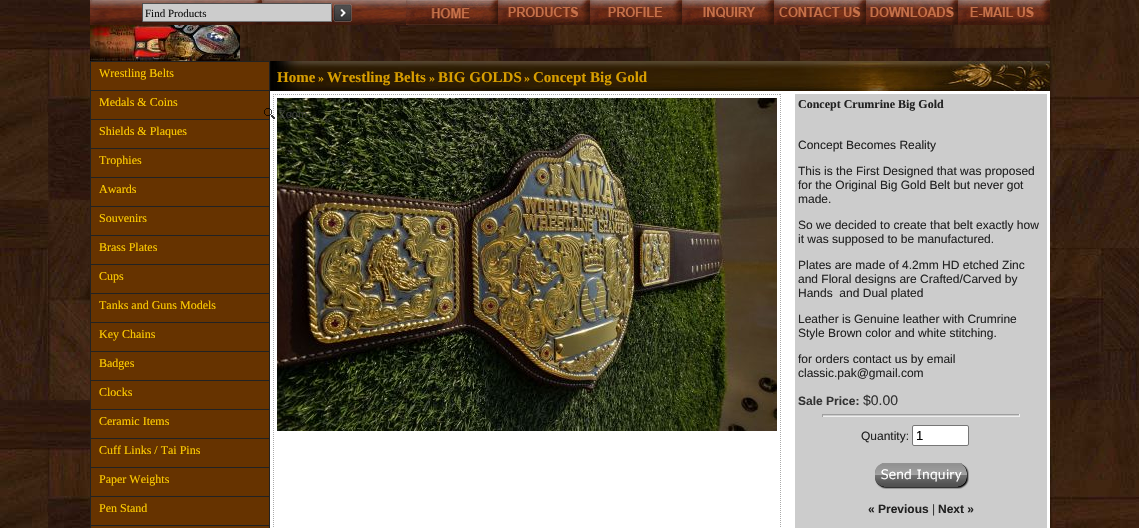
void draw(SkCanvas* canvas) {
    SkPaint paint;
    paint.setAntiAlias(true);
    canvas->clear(0xFFFFFFFF);
    canvas->drawImageRect(SkImages::DeferredFromEncodedData(SkData::MakeFromFileName("img1.png")), SkRect::MakeXYWH(0, 0, 1139, 528), SkSamplingOptions());
    canvas->drawImageRect(SkImages::DeferredFromEncodedData(SkData::MakeFromFileName("img2.png")), SkRect::MakeXYWH(90, 0, 316, 25), SkSamplingOptions());
    paint.setColor(0xFFCCCCCC);
    canvas->drawRect(SkRect::MakeXYWH(143, 4, 188, 17), paint);
    paint.setColor(0xFF4F4F4F);
    canvas->drawRect(SkRect::MakeXYWH(142, 3, 190, 1), paint);
    paint.setColor(0xFF767676);
    canvas->drawRect(SkRect::MakeXYWH(331, 3, 1, 19), paint);
    canvas->drawRect(SkRect::MakeXYWH(142, 21, 190, 1), paint);
    paint.setColor(0xFF4F4F4F);
    canvas->drawRect(SkRect::MakeXYWH(142, 3, 1, 19), paint);
    SkFont font1(fontMgr->matchFamilyStyle("Liberation Serif", SkFontStyle::Normal()), 11);
    font1.setSubpixel(true);
    paint.setColor(0xFF111111);
    canvas->drawString("Find Products", 145, 17, font1, paint);
    canvas->drawImageRect(SkImages::DeferredFromEncodedData(SkData::MakeFromFileName("img3.png")), SkRect::MakeXYWH(333, 4, 19, 18), SkSamplingOptions());
    canvas->drawImageRect(SkImages::DeferredFromEncodedData(SkData::MakeFromFileName("img4.png")), SkRect::MakeXYWH(406, 0, 92, 25), SkSamplingOptions());
    canvas->drawImageRect(SkImages::DeferredFromEncodedData(SkData::MakeFromFileName("img5.png")), SkRect::MakeXYWH(498, 0, 92, 25), SkSamplingOptions());
    canvas->drawImageRect(SkImages::DeferredFromEncodedData(SkData::MakeFromFileName("img6.png")), SkRect::MakeXYWH(590, 0, 92, 25), SkSamplingOptions());
    canvas->drawImageRect(SkImages::DeferredFromEncodedData(SkData::MakeFromFileName("img7.png")), SkRect::MakeXYWH(682, 0, 92, 25), SkSamplingOptions());
    canvas->drawImageRect(SkImages::DeferredFromEncodedData(SkData::MakeFromFileName("img8.png")), SkRect::MakeXYWH(774, 0, 92, 25), SkSamplingOptions());
    canvas->drawImageRect(SkImages::DeferredFromEncodedData(SkData::MakeFromFileName("img9.png")), SkRect::MakeXYWH(866, 0, 92, 25), SkSamplingOptions());
    canvas->drawImageRect(SkImages::DeferredFromEncodedData(SkData::MakeFromFileName("img10.png")), SkRect::MakeXYWH(958, 0, 92, 25), SkSamplingOptions());
    canvas->drawImageRect(SkImages::DeferredFromEncodedData(SkData::MakeFromFileName("img11.png")), SkRect::MakeXYWH(90, 25, 150, 36), SkSamplingOptions());
    paint.setColor(0xFFFFFFFF);
    canvas->drawRect(SkRect::MakeXYWH(270, 91, 780, 437), paint);
    paint.setColor(0xFF663300);
    canvas->drawRect(SkRect::MakeXYWH(90.5f, 61.5f, 179, 29), paint);
    paint.setStyle(SkPaint::kStroke_Style);
    paint.setStrokeWidth(1);
    paint.setColor(0xFF222222);
    canvas->drawRect(SkRect::MakeXYWH(90.5f, 61.5f, 179, 29), paint);
    SkFont font2(fontMgr->matchFamilyStyle("Liberation Serif", SkFontStyle::Normal()), 12);
    font2.setSubpixel(true);
    paint.setStyle(SkPaint::kFill_Style);
    paint.setColor(0xFFFFCC00);
    canvas->drawString("Wrestling Belts", 99, 77, font2, paint);
    paint.setColor(0xFF663300);
    canvas->drawRect(SkRect::MakeXYWH(90.5f, 90.5f, 179, 29), paint);
    paint.setStyle(SkPaint::kStroke_Style);
    paint.setColor(0xFF222222);
    canvas->drawRect(SkRect::MakeXYWH(90.5f, 90.5f, 179, 29), paint);
    paint.setStyle(SkPaint::kFill_Style);
    paint.setColor(0xFFFFCC00);
    canvas->drawString("Medals & Coins", 99, 106, font2, paint);
    paint.setColor(0xFF663300);
    canvas->drawRect(SkRect::MakeXYWH(90.5f, 119.5f, 179, 29), paint);
    paint.setStyle(SkPaint::kStroke_Style);
    paint.setColor(0xFF222222);
    canvas->drawRect(SkRect::MakeXYWH(90.5f, 119.5f, 179, 29), paint);
    paint.setStyle(SkPaint::kFill_Style);
    paint.setColor(0xFFFFCC00);
    canvas->drawString("Shields & Plaques", 99, 135, font2, paint);
    paint.setColor(0xFF663300);
    canvas->drawRect(SkRect::MakeXYWH(90.5f, 148.5f, 179, 29), paint);
    paint.setStyle(SkPaint::kStroke_Style);
    paint.setColor(0xFF222222);
    canvas->drawRect(SkRect::MakeXYWH(90.5f, 148.5f, 179, 29), paint);
    paint.setStyle(SkPaint::kFill_Style);
    paint.setColor(0xFFFFCC00);
    canvas->drawString("Trophies", 99, 164, font2, paint);
    paint.setColor(0xFF663300);
    canvas->drawRect(SkRect::MakeXYWH(90.5f, 177.5f, 179, 29), paint);
    paint.setStyle(SkPaint::kStroke_Style);
    paint.setColor(0xFF222222);
    canvas->drawRect(SkRect::MakeXYWH(90.5f, 177.5f, 179, 29), paint);
    paint.setStyle(SkPaint::kFill_Style);
    paint.setColor(0xFFFFCC00);
    canvas->drawString("Awards", 99, 193, font2, paint);
    paint.setColor(0xFF663300);
    canvas->drawRect(SkRect::MakeXYWH(90.5f, 206.5f, 179, 29), paint);
    paint.setStyle(SkPaint::kStroke_Style);
    paint.setColor(0xFF222222);
    canvas->drawRect(SkRect::MakeXYWH(90.5f, 206.5f, 179, 29), paint);
    paint.setStyle(SkPaint::kFill_Style);
    paint.setColor(0xFFFFCC00);
    canvas->drawString("Souvenirs", 99, 222, font2, paint);
    paint.setColor(0xFF663300);
    canvas->drawRect(SkRect::MakeXYWH(90.5f, 235.5f, 179, 29), paint);
    paint.setStyle(SkPaint::kStroke_Style);
    paint.setColor(0xFF222222);
    canvas->drawRect(SkRect::MakeXYWH(90.5f, 235.5f, 179, 29), paint);
    paint.setStyle(SkPaint::kFill_Style);
    paint.setColor(0xFFFFCC00);
    canvas->drawString("Brass Plates", 99, 251, font2, paint);
    paint.setColor(0xFF663300);
    canvas->drawRect(SkRect::MakeXYWH(90.5f, 264.5f, 179, 29), paint);
    paint.setStyle(SkPaint::kStroke_Style);
    paint.setColor(0xFF222222);
    canvas->drawRect(SkRect::MakeXYWH(90.5f, 264.5f, 179, 29), paint);
    paint.setStyle(SkPaint::kFill_Style);
    paint.setColor(0xFFFFCC00);
    canvas->drawString("Cups", 99, 280, font2, paint);
    paint.setColor(0xFF663300);
    canvas->drawRect(SkRect::MakeXYWH(90.5f, 293.5f, 179, 29), paint);
    paint.setStyle(SkPaint::kStroke_Style);
    paint.setColor(0xFF222222);
    canvas->drawRect(SkRect::MakeXYWH(90.5f, 293.5f, 179, 29), paint);
    paint.setStyle(SkPaint::kFill_Style);
    paint.setColor(0xFFFFCC00);
    canvas->drawString("Tanks and Guns Models", 99, 309, font2, paint);
    paint.setColor(0xFF663300);
    canvas->drawRect(SkRect::MakeXYWH(90.5f, 322.5f, 179, 29), paint);
    paint.setStyle(SkPaint::kStroke_Style);
    paint.setColor(0xFF222222);
    canvas->drawRect(SkRect::MakeXYWH(90.5f, 322.5f, 179, 29), paint);
    paint.setStyle(SkPaint::kFill_Style);
    paint.setColor(0xFFFFCC00);
    canvas->drawString("Key Chains", 99, 338, font2, paint);
    paint.setColor(0xFF663300);
    canvas->drawRect(SkRect::MakeXYWH(90.5f, 351.5f, 179, 29), paint);
    paint.setStyle(SkPaint::kStroke_Style);
    paint.setColor(0xFF222222);
    canvas->drawRect(SkRect::MakeXYWH(90.5f, 351.5f, 179, 29), paint);
    paint.setStyle(SkPaint::kFill_Style);
    paint.setColor(0xFFFFCC00);
    canvas->drawString("Badges", 99, 367, font2, paint);
    paint.setColor(0xFF663300);
    canvas->drawRect(SkRect::MakeXYWH(90.5f, 380.5f, 179, 29), paint);
    paint.setStyle(SkPaint::kStroke_Style);
    paint.setColor(0xFF222222);
    canvas->drawRect(SkRect::MakeXYWH(90.5f, 380.5f, 179, 29), paint);
    paint.setStyle(SkPaint::kFill_Style);
    paint.setColor(0xFFFFCC00);
    canvas->drawString("Clocks", 99, 396, font2, paint);
    paint.setColor(0xFF663300);
    canvas->drawRect(SkRect::MakeXYWH(90.5f, 409.5f, 179, 29), paint);
    paint.setStyle(SkPaint::kStroke_Style);
    paint.setColor(0xFF222222);
    canvas->drawRect(SkRect::MakeXYWH(90.5f, 409.5f, 179, 29), paint);
    paint.setStyle(SkPaint::kFill_Style);
    paint.setColor(0xFFFFCC00);
    canvas->drawString("Ceramic Items", 99, 425, font2, paint);
    paint.setColor(0xFF663300);
    canvas->drawRect(SkRect::MakeXYWH(90.5f, 438.5f, 179, 29), paint);
    paint.setStyle(SkPaint::kStroke_Style);
    paint.setColor(0xFF222222);
    canvas->drawRect(SkRect::MakeXYWH(90.5f, 438.5f, 179, 29), paint);
    paint.setStyle(SkPaint::kFill_Style);
    paint.setColor(0xFFFFCC00);
    canvas->drawString("Cuff Links / Tai Pins", 99, 454, font2, paint);
    paint.setColor(0xFF663300);
    canvas->drawRect(SkRect::MakeXYWH(90.5f, 467.5f, 179, 29), paint);
    paint.setStyle(SkPaint::kStroke_Style);
    paint.setColor(0xFF222222);
    canvas->drawRect(SkRect::MakeXYWH(90.5f, 467.5f, 179, 29), paint);
    paint.setStyle(SkPaint::kFill_Style);
    paint.setColor(0xFFFFCC00);
    canvas->drawString("Paper Weights", 99, 483, font2, paint);
    paint.setColor(0xFF663300);
    canvas->drawRect(SkRect::MakeXYWH(90.5f, 496.5f, 179, 29), paint);
    paint.setStyle(SkPaint::kStroke_Style);
    paint.setColor(0xFF222222);
    canvas->drawRect(SkRect::MakeXYWH(90.5f, 496.5f, 179, 29), paint);
    paint.setStyle(SkPaint::kFill_Style);
    paint.setColor(0xFFFFCC00);
    canvas->drawString("Pen Stand", 99, 512, font2, paint);
    paint.setColor(0xFF663300);
    canvas->drawRect(SkRect::MakeXYWH(90.5f, 525.5f, 179, 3), paint);
    paint.setStyle(SkPaint::kStroke_Style);
    paint.setColor(0xFF222222);
    canvas->drawRect(SkRect::MakeXYWH(90.5f, 525.5f, 179, 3), paint);
    canvas->drawImageRect(SkImages::DeferredFromEncodedData(SkData::MakeFromFileName("img12.png")), SkRect::MakeXYWH(270, 61, 780, 30), SkSamplingOptions());
    SkFont font3(fontMgr->matchFamilyStyle("Liberation Serif", SkFontStyle::Bold()), 15);
    font3.setSubpixel(true);
    paint.setStyle(SkPaint::kFill_Style);
    paint.setColor(0xFFD89E00);
    canvas->drawString("Home", 277, 82, font3, paint);
    SkFont font4(fontMgr->matchFamilyStyle("Liberation Serif", SkFontStyle::Bold()), 12);
    font4.setSubpixel(true);
    canvas->drawString("»", 318, 82, font4, paint);
    canvas->drawString("Wrestling Belts", 327, 82, font3, paint);
    canvas->drawString("»", 429, 82, font4, paint);
    canvas->drawString("BIG GOLDS", 438, 82, font3, paint);
    canvas->drawString("»", 524, 82, font4, paint);
    canvas->drawString("Concept Big Gold", 533, 82, font3, paint);
    paint.setStyle(SkPaint::kStroke_Style);
    paint.setColor(0xFFAAAAAA);
    paint.setPathEffect(SkDashPathEffect::Make({{1, 1}}, 0));
    canvas->drawPath(SkPathBuilder().moveTo(273, 94.5f).lineTo(781, 94.5f).detach(), paint);
    paint.setPathEffect(nullptr);
    paint.setPathEffect(SkDashPathEffect::Make({{1, 1}}, 0));
    canvas->drawPath(SkPathBuilder().moveTo(780.5f, 94).lineTo(780.5f, 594).detach(), paint);
    paint.setPathEffect(nullptr);
    paint.setPathEffect(SkDashPathEffect::Make({{1, 1}}, 0));
    canvas->drawPath(SkPathBuilder().moveTo(273.5f, 94).lineTo(273.5f, 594).detach(), paint);
    paint.setPathEffect(nullptr);
    canvas->drawImageRect(SkImages::DeferredFromEncodedData(SkData::MakeFromFileName("img13.png")), SkRect::MakeXYWH(277, 98, 500, 333), SkSamplingOptions());
    canvas->drawImageRect(SkImages::DeferredFromEncodedData(SkData::MakeFromFileName("img14.png")), SkRect::MakeXYWH(264, 108, 11, 11), SkSamplingOptions());
    SkFont font5(fontMgr->matchFamilyStyle("Liberation Sans", SkFontStyle::Normal()), 11);
    font5.setSubpixel(true);
    paint.setStyle(SkPaint::kFill_Style);
    paint.setColor(0xFF3A3C37);
    canvas->drawString("Zoom", 279, 118, font5, paint);
    paint.setColor(0xFFCCCCCC);
    canvas->drawRect(SkRect::MakeXYWH(795, 94, 252, 434), paint);
    paint.setColor(0xFF222222);
    canvas->drawString("Concept Crumrine Big Gold", 798, 108, font4, paint);
    SkFont font6(fontMgr->matchFamilyStyle("Liberation Sans", SkFontStyle::Normal()), 12);
    font6.setSubpixel(true);
    canvas->drawString("Concept Becomes Reality", 798, 149, font6, paint);
    canvas->drawString("This is the First Designed that was proposed", 798, 175, font6, paint);
    canvas->drawString("for the Original Big Gold Belt but never got", 798, 189, font6, paint);
    canvas->drawString("made.", 798, 203, font6, paint);
    canvas->drawString("So we decided to create that belt exactly how", 798, 229, font6, paint);
    canvas->drawString("it was supposed to be manufactured.", 798, 243, font6, paint);
    canvas->drawString("Plates are made of 4.2mm HD etched Zinc", 798, 269, font6, paint);
    canvas->drawString("and Floral designs are Crafted/Carved by", 798, 283, font6, paint);
    canvas->drawString("Hands  and Dual plated", 798, 297, font6, paint);
    canvas->drawString("Leather is Genuine leather with Crumrine", 798, 323, font6, paint);
    canvas->drawString("Style Brown color and white stitching.", 798, 337, font6, paint);
    canvas->drawString("for orders contact us by email", 798, 363, font6, paint);
    canvas->drawString("classic.pak@gmail.com", 798, 377, font6, paint);
    SkFont font7(fontMgr->matchFamilyStyle("Liberation Sans", SkFontStyle::Bold()), 12);
    font7.setSubpixel(true);
    paint.setColor(0xFF333333);
    canvas->drawString("Sale Price:", 798, 405, font7, paint);
    SkFont font8(fontMgr->matchFamilyStyle("Liberation Sans", SkFontStyle::Normal()), 14);
    font8.setSubpixel(true);
    canvas->drawString("$0.00", 863, 405, font8, paint);
    paint.setColor(0xFF9F9F9F);
    canvas->drawRect(SkRect::MakeXYWH(822, 414, 198, 1), paint);
    paint.setColor(0xFFEEEEEE);
    canvas->drawRect(SkRect::MakeXYWH(1019, 414, 1, 3), paint);
    canvas->drawRect(SkRect::MakeXYWH(822, 416, 198, 1), paint);
    paint.setColor(0xFF9F9F9F);
    canvas->drawRect(SkRect::MakeXYWH(822, 414, 1, 3), paint);
    paint.setColor(0xFF222222);
    canvas->drawString("Quantity:", 861, 440, font6, paint);
    paint.setColor(0xFFFFFFFF);
    canvas->drawRoundRect(SkRect::MakeXYWH(912.5f, 425.5f, 56, 20), 1.5f, 1.5f, paint);
    paint.setStyle(SkPaint::kStroke_Style);
    paint.setColor(0xFF767676);
    canvas->drawRoundRect(SkRect::MakeXYWH(912.5f, 425.5f, 56, 20), 1.5f, 1.5f, paint);
    SkFont font9(fontMgr->matchFamilyStyle("Liberation Sans", SkFontStyle::Normal()), 13);
    font9.setSubpixel(true);
    paint.setStyle(SkPaint::kFill_Style);
    paint.setColor(0xFF000000);
    canvas->drawString("1", 916, 440, font9, paint);
    canvas->drawImageRect(SkImages::DeferredFromEncodedData(SkData::MakeFromFileName("img15.png")), SkRect::MakeXYWH(875, 463, 94, 26), SkSamplingOptions());
    paint.setColor(0xFF222222);
    canvas->drawString("« Previous", 868, 513, font7, paint);
    paint.setColor(0xFF333333);
    canvas->drawString("|", 932, 513, font6, paint);
    paint.setColor(0xFF222222);
    canvas->drawString("Next »", 938, 513, font7, paint);
}
